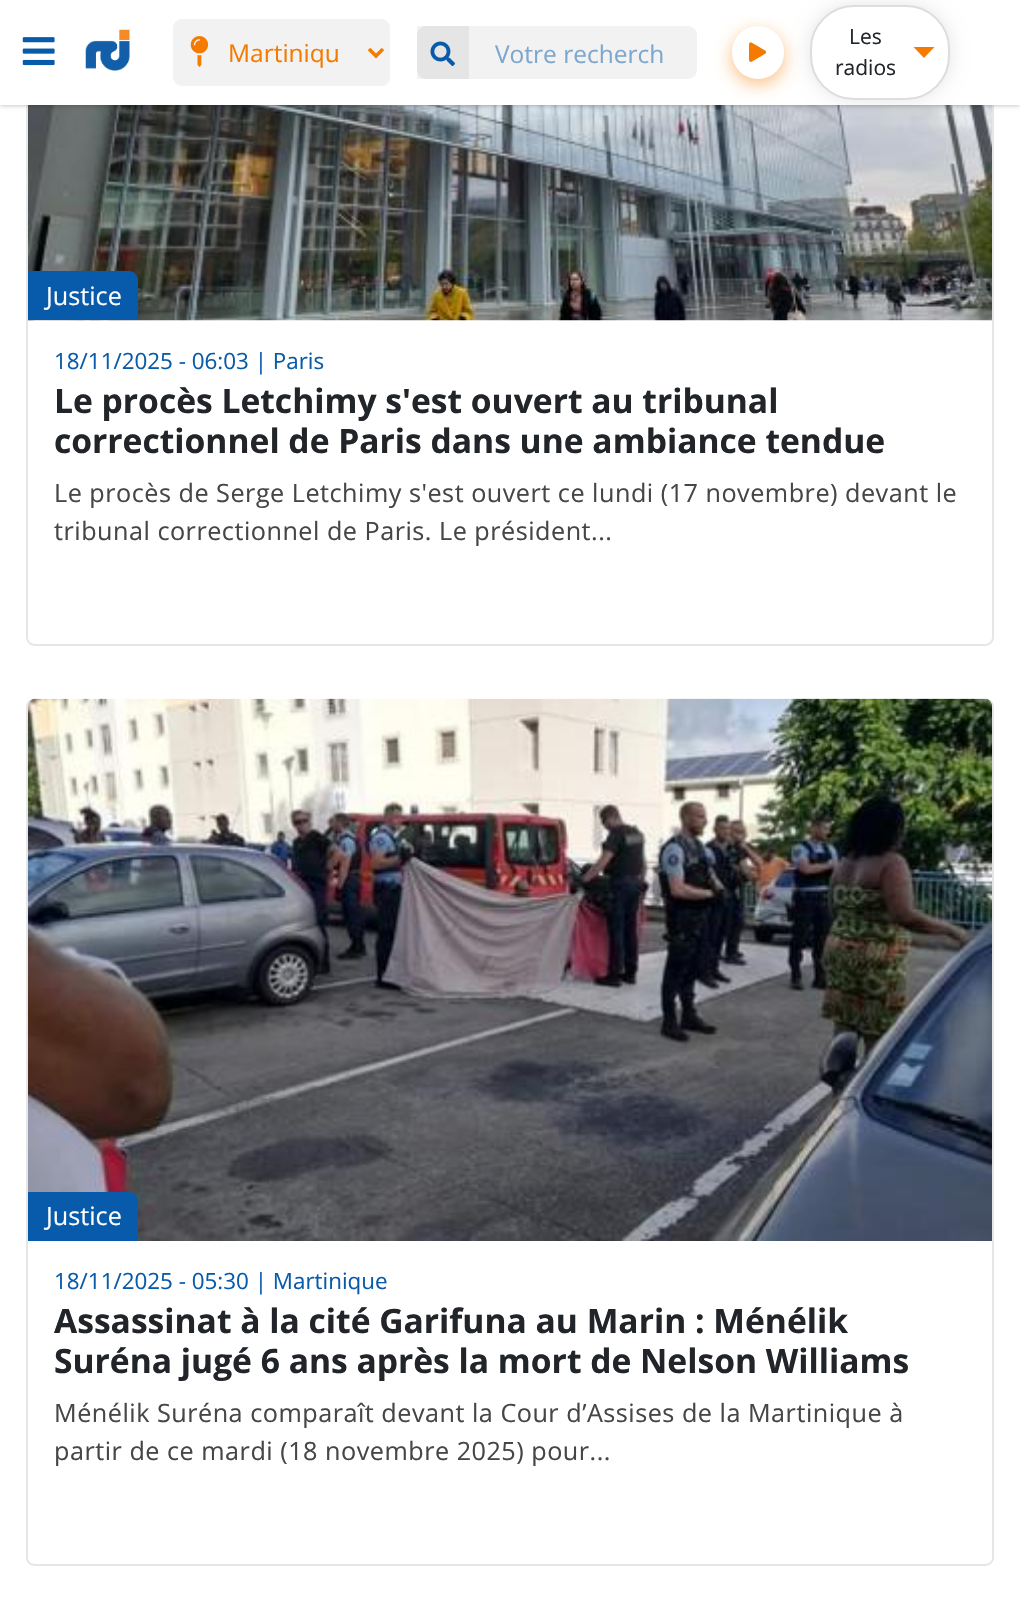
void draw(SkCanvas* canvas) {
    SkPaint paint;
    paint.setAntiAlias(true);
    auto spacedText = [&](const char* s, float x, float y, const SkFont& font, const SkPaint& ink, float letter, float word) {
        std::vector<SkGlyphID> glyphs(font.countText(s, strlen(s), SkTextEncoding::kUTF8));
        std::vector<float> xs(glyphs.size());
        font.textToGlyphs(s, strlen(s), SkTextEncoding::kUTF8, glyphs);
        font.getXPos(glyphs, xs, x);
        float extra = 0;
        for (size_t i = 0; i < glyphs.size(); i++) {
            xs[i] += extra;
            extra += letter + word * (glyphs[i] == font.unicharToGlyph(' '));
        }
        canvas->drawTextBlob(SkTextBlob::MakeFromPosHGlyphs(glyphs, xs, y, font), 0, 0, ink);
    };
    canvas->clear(0xFFFFFFFF);
    paint.setColor(0xFFE6E6E6);
    canvas->drawPath(SkPathBuilder(SkPathFillType::kEvenOdd).moveTo(35, -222).lineTo(985, -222).cubicTo(990, -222, 994, -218, 994, -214).lineTo(994, 637).cubicTo(994, 642, 990, 646, 985, 646).lineTo(35, 646).cubicTo(30, 646, 26, 642, 26, 637).lineTo(26, -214).cubicTo(26, -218, 30, -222, 35, -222).close().moveTo(35, -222).lineTo(985, -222).cubicTo(989, -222, 992, -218, 992, -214).lineTo(992, 637).cubicTo(992, 641, 989, 644, 985, 644).lineTo(35, 644).cubicTo(31, 644, 28, 641, 28, 637).lineTo(28, -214).cubicTo(28, -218, 31, -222, 35, -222).close().detach(), paint);
    canvas->drawImageRect(SkImages::DeferredFromEncodedData(SkData::MakeFromFileName("img6.png")), SkRect::MakeXYWH(28, 105, 964, 216), SkSamplingOptions());
    paint.setColor(0x4D000000);
    paint.setMaskFilter(SkMaskFilter::MakeBlur(kNormal_SkBlurStyle, 2.5f));
    canvas->drawRect(SkRect::MakeXYWH(0, 0, 1020, 105), paint);
    paint.setMaskFilter(nullptr);
    paint.setColor(0xFFFFFFFF);
    canvas->drawRect(SkRect::MakeXYWH(0, 0, 1020, 105), paint);
    canvas->drawImageRect(SkImages::DeferredFromEncodedData(SkData::MakeFromFileName("img1.png")), SkRect::MakeXYWH(22, 37, 33, 29), SkSamplingOptions());
    canvas->drawImageRect(SkImages::DeferredFromEncodedData(SkData::MakeFromFileName("img2.png")), SkRect::MakeXYWH(85, 29, 45, 42), SkSamplingOptions());
    paint.setColor(0xFFF2F2F2);
    canvas->drawRoundRect(SkRect::MakeXYWH(173, 19, 217, 67), 9, 9, paint);
    canvas->drawImageRect(SkImages::DeferredFromEncodedData(SkData::MakeFromFileName("img3.png")), SkRect::MakeXYWH(190, 36, 19, 31), SkSamplingOptions());
    canvas->drawPath(SkPathBuilder().moveTo(219, 19).lineTo(381, 19).cubicTo(386, 19, 390, 23, 390, 28).lineTo(390, 77).cubicTo(390, 82, 386, 86, 381, 86).lineTo(219, 86).cubicTo(215, 86, 212, 83, 212, 79).lineTo(212, 26).cubicTo(212, 22, 215, 19, 219, 19).close().detach(), paint);
    paint.setStyle(SkPaint::kStroke_Style);
    paint.setStrokeWidth(3.5f);
    paint.setColor(0xFFF57B00);
    canvas->drawPath(SkPathBuilder().moveTo(369, 49).lineTo(376, 56).lineTo(383, 49).detach(), paint);
    SkFont font1(fontMgr->matchFamilyStyle("Open Sans", SkFontStyle::Normal()), 24.5f);
    font1.setSubpixel(true);
    paint.setStyle(SkPaint::kFill_Style);
    canvas->drawString("Martiniqu", 228, 62, font1, paint);
    paint.setColor(0xFFF2F2F2);
    canvas->drawRoundRect(SkRect::MakeXYWH(417, 26, 280, 53), 9, 9, paint);
    paint.setColor(0x0D000000);
    canvas->drawRect(SkRect::MakeXYWH(417, 26, 52, 53), paint);
    canvas->drawImageRect(SkImages::DeferredFromEncodedData(SkData::MakeFromFileName("img4.png")), SkRect::MakeXYWH(430, 41, 25, 25), SkSamplingOptions());
    paint.setColor(0xFF7DA7CE);
    canvas->drawString("Votre recherch", 495, 63, font1, paint);
    paint.setColor(0x80F57B00);
    paint.setMaskFilter(SkMaskFilter::MakeBlur(kNormal_SkBlurStyle, 9));
    canvas->drawRoundRect(SkRect::MakeXYWH(732, 32, 52, 52), 26, 26, paint);
    paint.setMaskFilter(nullptr);
    paint.setColor(0xFFFFFFFF);
    canvas->drawRoundRect(SkRect::MakeXYWH(732, 26, 52, 53), 26, 26, paint);
    canvas->drawImageRect(SkImages::DeferredFromEncodedData(SkData::MakeFromFileName("img5.png")), SkRect::MakeXYWH(749, 42, 18, 20), SkSamplingOptions());
    paint.setColor(0x1A000000);
    paint.setMaskFilter(SkMaskFilter::MakeBlur(kNormal_SkBlurStyle, 9));
    canvas->drawRoundRect(SkRect::MakeXYWH(810, 5, 140, 95), 44, 44, paint);
    paint.setMaskFilter(nullptr);
    paint.setColor(0xFFFFFFFF);
    canvas->drawRoundRect(SkRect::MakeXYWH(811, 6, 138, 93), 43, 43, paint);
    paint.setStyle(SkPaint::kStroke_Style);
    paint.setStrokeWidth(2);
    paint.setColor(0xFFDDDDDD);
    canvas->drawRoundRect(SkRect::MakeXYWH(811, 6, 138, 93), 43, 43, paint);
    SkFont font2(fontMgr->matchFamilyStyle("Open Sans", SkFontStyle::Normal()), 21);
    font2.setSubpixel(true);
    paint.setStyle(SkPaint::kFill_Style);
    paint.setColor(0xFF212529);
    canvas->drawString("Les", 849, 44, font2, paint);
    canvas->drawString("radios", 835, 75, font2, paint);
    paint.setColor(0xFFF57B00);
    canvas->drawPath(SkPathBuilder().moveTo(913.5f, 47).lineTo(934.5f, 47).lineTo(924, 58).close().detach(), paint);
    paint.setColor(0xFF085BAA);
    canvas->drawPath(SkPathBuilder().moveTo(28, 271).lineTo(129, 271).cubicTo(134, 271, 138, 275, 138, 280).lineTo(138, 320).lineTo(28, 320).close().detach(), paint);
    SkFont font3(fontMgr->matchFamilyStyle("Open Sans", SkFontStyle::Normal()), 25.2f);
    font3.setSubpixel(true);
    paint.setColor(0xFFFFFFFF);
    canvas->drawString("Justice", 46, 305, font3, paint);
    SkFont font4(fontMgr->matchFamilyStyle("Open Sans", SkFontStyle::Normal()), 22.4f);
    font4.setSubpixel(true);
    paint.setColor(0xFF085BAA);
    canvas->drawString("18/11/2025 - 06:03 | Paris", 54, 369, font4, paint);
    SkFont font5(fontMgr->matchFamilyStyle("Open Sans", SkFontStyle::Bold()), 33.6f);
    font5.setSubpixel(true);
    paint.setColor(0xFF212529);
    canvas->drawString("Le procès Letchimy s'est ouvert au tribunal", 54, 413, font5, paint);
    canvas->drawString("correctionnel de Paris dans une ambiance tendue", 54, 453, font5, paint);
    paint.setColor(0xFF464646);
    spacedText("Le procès de Serge Letchimy s'est ouvert ce lundi (17 novembre) devant le", 54, 502, font3, paint, 0.5f, 0);
    spacedText("tribunal correctionnel de Paris. Le président...", 54, 540, font3, paint, 0.5f, 0);
    paint.setColor(0xFFE6E6E6);
    canvas->drawPath(SkPathBuilder(SkPathFillType::kEvenOdd).moveTo(35, 698).lineTo(985, 698).cubicTo(990, 698, 994, 702, 994, 707).lineTo(994, 1558).cubicTo(994, 1562, 990, 1566, 985, 1566).lineTo(35, 1566).cubicTo(30, 1566, 26, 1562, 26, 1558).lineTo(26, 707).cubicTo(26, 702, 30, 698, 35, 698).close().moveTo(35, 698).lineTo(985, 698).cubicTo(989, 698, 992, 702, 992, 707).lineTo(992, 1558).cubicTo(992, 1561, 989, 1564, 985, 1564).lineTo(35, 1564).cubicTo(31, 1564, 28, 1561, 28, 1558).lineTo(28, 707).cubicTo(28, 702, 31, 698, 35, 698).close().detach(), paint);
    canvas->drawImageRect(SkImages::DeferredFromEncodedData(SkData::MakeFromFileName("img7.png")), SkRect::MakeXYWH(28, 698, 964, 543), SkSamplingOptions());
    paint.setColor(0xFF085BAA);
    canvas->drawPath(SkPathBuilder().moveTo(28, 1192).lineTo(129, 1192).cubicTo(134, 1192, 138, 1196, 138, 1201).lineTo(138, 1241).lineTo(28, 1241).close().detach(), paint);
    paint.setColor(0xFFFFFFFF);
    canvas->drawString("Justice", 46, 1225, font3, paint);
    paint.setColor(0xFF085BAA);
    canvas->drawString("18/11/2025 - 05:30 | Martinique", 54, 1289, font4, paint);
    paint.setColor(0xFF212529);
    canvas->drawString("Assassinat à la cité Garifuna au Marin : Ménélik", 54, 1333, font5, paint);
    canvas->drawString("Suréna jugé 6 ans après la mort de Nelson Williams", 54, 1373, font5, paint);
    paint.setColor(0xFF464646);
    spacedText("Ménélik Suréna comparaît devant la Cour d’Assises de la Martinique à", 54, 1422, font3, paint, 0.5f, 0);
    spacedText("partir de ce mardi (18 novembre 2025) pour...", 54, 1460, font3, paint, 0.5f, 0);
}
